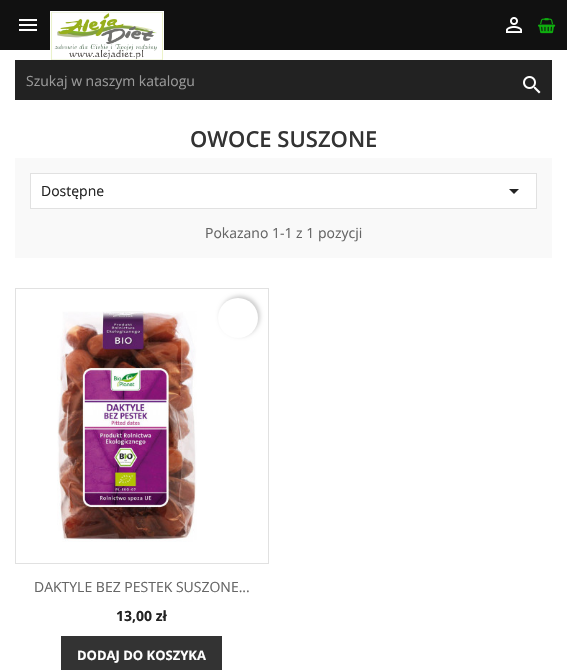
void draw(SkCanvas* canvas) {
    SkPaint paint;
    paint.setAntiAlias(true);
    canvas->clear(0xFFFFFFFF);
    paint.setColor(0xFF111111);
    canvas->drawRect(SkRect::MakeXYWH(0, 0, 567, 50), paint);
    canvas->drawImageRect(SkImages::DeferredFromEncodedData(SkData::MakeFromFileName("img1.png")), SkRect::MakeXYWH(19, 19, 18, 12), SkSamplingOptions());
    canvas->drawImageRect(SkImages::DeferredFromEncodedData(SkData::MakeFromFileName("img2.png")), SkRect::MakeXYWH(50, 11, 114, 49), SkSamplingOptions());
    canvas->drawImageRect(SkImages::DeferredFromEncodedData(SkData::MakeFromFileName("img3.png")), SkRect::MakeXYWH(506, 17, 16, 16), SkSamplingOptions());
    canvas->drawImageRect(SkImages::DeferredFromEncodedData(SkData::MakeFromFileName("img4.png")), SkRect::MakeXYWH(538, 18, 18, 16), SkSamplingOptions());
    paint.setColor(0xFF222222);
    canvas->drawRect(SkRect::MakeXYWH(15, 60, 537, 40), paint);
    SkFont font1(fontMgr->matchFamilyStyle("Open Sans", SkFontStyle::Normal()), 14);
    font1.setSubpixel(true);
    paint.setColor(0xFF999999);
    canvas->drawString("Szukaj w naszym katalogu", 26, 86, font1, paint);
    canvas->drawImageRect(SkImages::DeferredFromEncodedData(SkData::MakeFromFileName("img5.png")), SkRect::MakeXYWH(523, 76, 18, 18), SkSamplingOptions());
    SkFont font2(fontMgr->matchFamilyStyle("Open Sans", SkFontStyle(600, SkFontStyle::kNormal_Width, SkFontStyle::kUpright_Slant)), 22);
    font2.setSubpixel(true);
    paint.setColor(0xFF333333);
    canvas->drawString("OWOCE SUSZONE", 190, 147, font2, paint);
    paint.setColor(0xFFF9F9F9);
    canvas->drawRect(SkRect::MakeXYWH(15, 158, 537, 100), paint);
    paint.setColor(0xFFFFFFFF);
    canvas->drawRect(SkRect::MakeXYWH(30.5f, 173.5f, 506, 35), paint);
    paint.setStyle(SkPaint::kStroke_Style);
    paint.setStrokeWidth(1);
    paint.setColor(0xFFE1E1E1);
    canvas->drawRect(SkRect::MakeXYWH(30.5f, 173.5f, 506, 35), paint);
    paint.setStyle(SkPaint::kFill_Style);
    paint.setColor(0xFF232323);
    canvas->drawString("Dostępne", 41, 196, font1, paint);
    canvas->drawPath(SkPathBuilder().moveTo(509, 189).lineTo(519, 189).lineTo(514, 194).close().detach(), paint);
    paint.setColor(0xFF666666);
    canvas->drawString("Pokazano 1-1 z 1 pozycji", 205, 238, font1, paint);
    paint.setStyle(SkPaint::kStroke_Style);
    paint.setColor(0xFFE1E1E1);
    canvas->drawRect(SkRect::MakeXYWH(15.5f, 288.5f, 253, 275), paint);
    canvas->drawImageRect(SkImages::DeferredFromEncodedData(SkData::MakeFromFileName("img6.png")), SkRect::MakeXYWH(57, 311, 140, 231), SkSamplingOptions());
    paint.setStyle(SkPaint::kFill_Style);
    paint.setColor(0x33000000);
    paint.setMaskFilter(SkMaskFilter::MakeBlur(kNormal_SkBlurStyle, 2));
    canvas->drawRoundRect(SkRect::MakeXYWH(220, 296, 40, 40), 20, 20, paint);
    paint.setMaskFilter(nullptr);
    paint.setColor(0xFFFFFFFF);
    canvas->drawCircle(238, 318, 20, paint);
    paint.setColor(0xFF666666);
    canvas->drawString("DAKTYLE BEZ PESTEK SUSZONE...", 34, 592, font1, paint);
    SkFont font3(fontMgr->matchFamilyStyle("Open Sans", SkFontStyle::Bold()), 14);
    font3.setSubpixel(true);
    paint.setColor(0xFF232323);
    canvas->drawString("13,00 zł", 116, 621, font3, paint);
    paint.setColor(0xFF333333);
    canvas->drawRect(SkRect::MakeXYWH(61, 636, 161, 34), paint);
    SkFont font4(fontMgr->matchFamilyStyle("Open Sans", SkFontStyle::Bold()), 13);
    font4.setSubpixel(true);
    paint.setColor(0xFFFFFFFF);
    canvas->drawString("DODAJ DO KOSZYKA", 77, 660, font4, paint);
}
